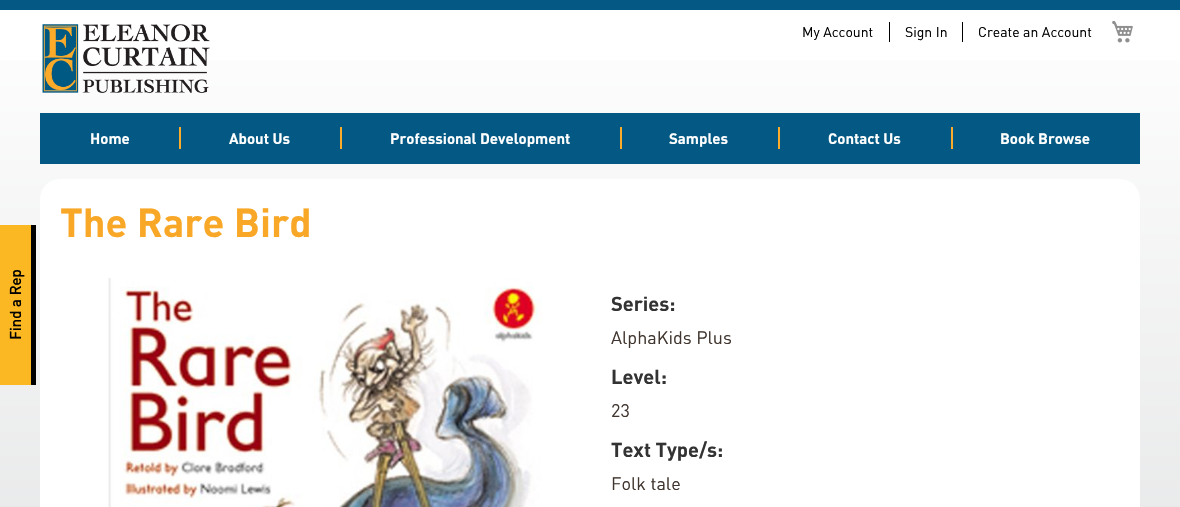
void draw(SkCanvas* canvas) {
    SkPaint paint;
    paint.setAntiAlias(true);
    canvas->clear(0xFFFFFFFF);
    {
        const SkColor colors[] = {0xFFFFFFFF, 0xFFC1C3C5};
        const float stops[] = {0, 1};
        const SkPoint ends[] = {{590, 0}, {590, 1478}};
        paint.setShader(SkGradientShader::MakeLinear(ends, colors, stops, 2, SkTileMode::kClamp));
        paint.setAlpha(255);
    }
    canvas->drawRect(SkRect::MakeXYWH(0, 60, 1180, 447), paint);
    paint.setShader(nullptr);
    paint.setColor(0xFFFBB823);
    canvas->drawRect(SkRect::MakeXYWH(0, 225, 31, 160), paint);
    paint.setColor(0xFF000000);
    canvas->drawRect(SkRect::MakeXYWH(31, 225, 5, 160), paint);
    SkFont font1(fontMgr->matchFamilyStyle("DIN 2", SkFontStyle::Bold()), 15);
    font1.setSubpixel(true);
    canvas->save();
    canvas->rotate(-90, 21, 340);
    canvas->drawString("Find a Rep", 21, 340, font1, paint);
    canvas->restore();
    canvas->drawImageRect(SkImages::DeferredFromEncodedData(SkData::MakeFromFileName("img1.png")), SkRect::MakeXYWH(42, 24, 168, 69), SkSamplingOptions());
    paint.setColor(0xFF035983);
    canvas->drawRect(SkRect::MakeXYWH(0, 0, 1180, 10), paint);
    SkFont font2(fontMgr->matchFamilyStyle("DIN", SkFontStyle::Normal()), 14);
    font2.setSubpixel(true);
    paint.setColor(0xFF000000);
    canvas->drawString("My Account", 802, 37, font2, paint);
    canvas->drawRect(SkRect::MakeXYWH(889, 22, 1, 20), paint);
    canvas->drawString("Sign In", 905, 37, font2, paint);
    canvas->drawRect(SkRect::MakeXYWH(962, 22, 1, 20), paint);
    canvas->drawString("Create an Account", 978, 37, font2, paint);
    canvas->drawImageRect(SkImages::DeferredFromEncodedData(SkData::MakeFromFileName("img2.png")), SkRect::MakeXYWH(1112, 20, 21, 23), SkSamplingOptions());
    paint.setColor(0xFF035983);
    canvas->drawRect(SkRect::MakeXYWH(40, 113, 1100, 51), paint);
    SkFont font3(fontMgr->matchFamilyStyle("DIN", SkFontStyle::Bold()), 15);
    font3.setSubpixel(true);
    paint.setColor(0xFFFFFFFF);
    canvas->drawString("Home", 90, 144, font3, paint);
    paint.setColor(0xFFFBAA29);
    canvas->drawRect(SkRect::MakeXYWH(179, 127, 2, 22), paint);
    paint.setColor(0xFFFFFFFF);
    canvas->drawString("About Us", 229, 144, font3, paint);
    paint.setColor(0xFFFBAA29);
    canvas->drawRect(SkRect::MakeXYWH(340, 127, 2, 22), paint);
    paint.setColor(0xFFFFFFFF);
    canvas->drawString("Professional Development", 390, 144, font3, paint);
    paint.setColor(0xFFFBAA29);
    canvas->drawRect(SkRect::MakeXYWH(620, 127, 2, 22), paint);
    paint.setColor(0xFFFFFFFF);
    canvas->drawString("Samples", 669, 144, font3, paint);
    paint.setColor(0xFFFBAA29);
    canvas->drawRect(SkRect::MakeXYWH(778, 127, 2, 22), paint);
    paint.setColor(0xFFFFFFFF);
    canvas->drawString("Contact Us", 828, 144, font3, paint);
    paint.setColor(0xFFFBAA29);
    canvas->drawRect(SkRect::MakeXYWH(951, 127, 2, 22), paint);
    paint.setColor(0xFFFFFFFF);
    canvas->drawString("Book Browse", 1000, 144, font3, paint);
    canvas->drawRoundRect(SkRect::MakeXYWH(40, 179, 1100, 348), 20, 20, paint);
    SkFont font4(fontMgr->matchFamilyStyle("DIN", SkFontStyle::Bold()), 40);
    font4.setSubpixel(true);
    paint.setColor(0xFFF9A726);
    canvas->drawString("The Rare Bird", 60, 237, font4, paint);
    canvas->drawImageRect(SkImages::DeferredFromEncodedData(SkData::MakeFromFileName("img3.png")), SkRect::MakeXYWH(108, 278, 434, 229), SkSamplingOptions());
    SkFont font5(fontMgr->matchFamilyStyle("DIN", SkFontStyle::Bold()), 20);
    font5.setSubpixel(true);
    paint.setColor(0xFF333333);
    canvas->drawString("Series:", 611, 311, font5, paint);
    SkFont font6(fontMgr->matchFamilyStyle("DIN", SkFontStyle::Normal()), 18);
    font6.setSubpixel(true);
    paint.setColor(0xFF41362F);
    canvas->drawString("AlphaKids Plus", 611, 344, font6, paint);
    paint.setColor(0xFF333333);
    canvas->drawString("Level:", 611, 384, font5, paint);
    paint.setColor(0xFF41362F);
    canvas->drawString("23", 611, 417, font6, paint);
    paint.setColor(0xFF333333);
    canvas->drawString("Text Type/s:", 611, 457, font5, paint);
    paint.setColor(0xFF41362F);
    canvas->drawString("Folk tale", 611, 490, font6, paint);
}
